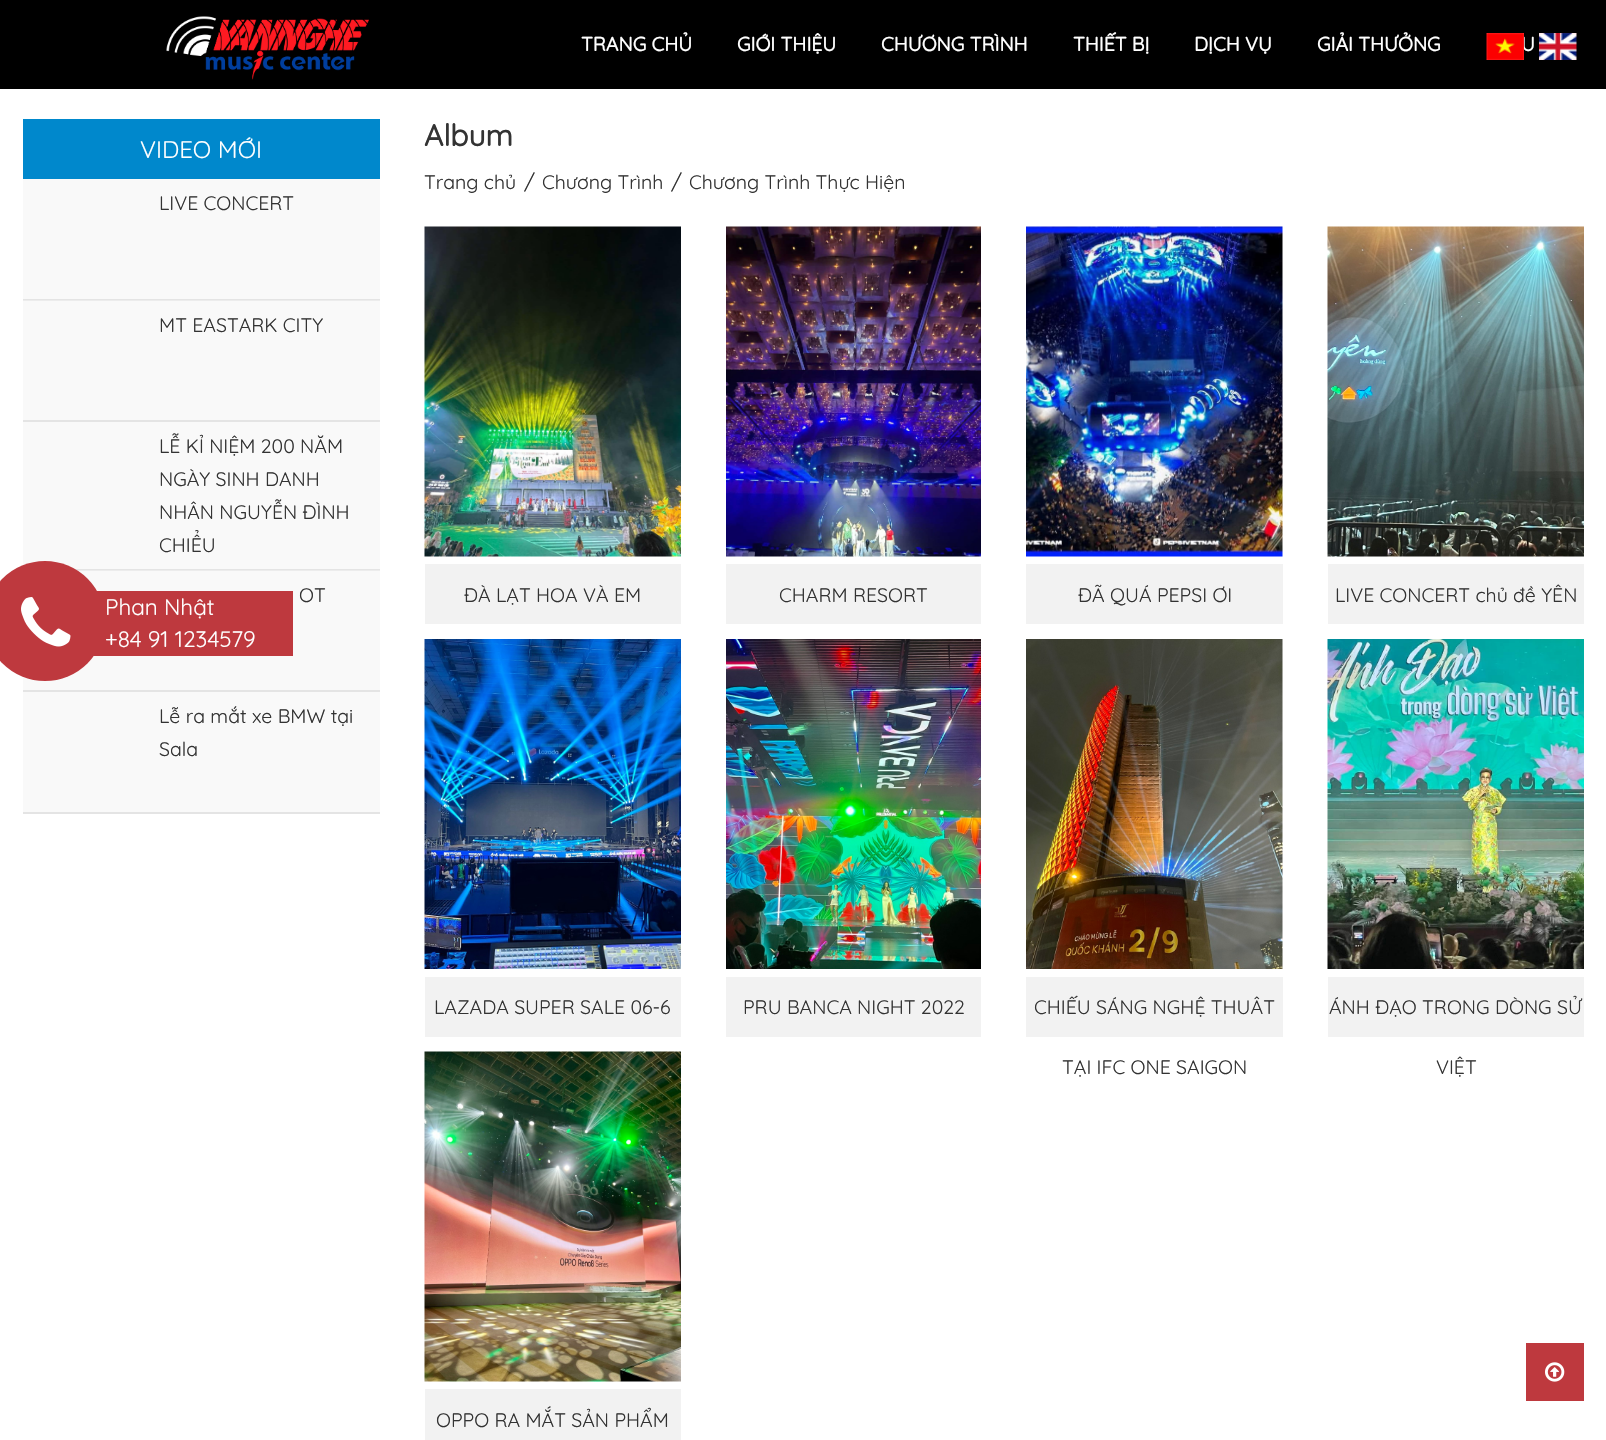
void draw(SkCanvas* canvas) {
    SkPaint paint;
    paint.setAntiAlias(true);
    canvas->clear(0xFFFFFFFF);
    paint.setColor(0xFFF9F9F9);
    canvas->drawRect(SkRect::MakeXYWH(23, 571, 357, 119), paint);
    canvas->drawRect(SkRect::MakeXYWH(23, 301, 357, 119), paint);
    paint.setColor(0xFF000000);
    canvas->drawRect(SkRect::MakeXYWH(0, 0, 1606, 89), paint);
    canvas->drawImageRect(SkImages::DeferredFromEncodedData(SkData::MakeFromFileName("img1.png")), SkRect::MakeXYWH(166, 16, 203, 64), SkSamplingOptions());
    SkFont font1(fontMgr->matchFamilyStyle("Quicksand", SkFontStyle::Bold()), 19.5f);
    font1.setSubpixel(true);
    paint.setColor(0xFFFFFFFF);
    canvas->drawString("TRANG CHỦ", 581, 51, font1, paint);
    canvas->drawString("GIỚI THIỆU", 737, 51, font1, paint);
    canvas->drawString("CHƯƠNG TRÌNH", 881, 51, font1, paint);
    canvas->drawString("THIẾT BỊ", 1073, 51, font1, paint);
    canvas->drawString("DỊCH VỤ", 1194, 51, font1, paint);
    canvas->drawString("GIẢI THƯỞNG", 1317, 51, font1, paint);
    canvas->drawString("U", 1521, 51, font1, paint);
    canvas->drawImageRect(SkImages::DeferredFromEncodedData(SkData::MakeFromFileName("img2.png")), SkRect::MakeXYWH(1486, 33, 38, 27), SkSamplingOptions());
    canvas->drawImageRect(SkImages::DeferredFromEncodedData(SkData::MakeFromFileName("img3.png")), SkRect::MakeXYWH(1539, 33, 38, 27), SkSamplingOptions());
    paint.setColor(0xFF0088CC);
    canvas->drawRect(SkRect::MakeXYWH(23, 119, 357, 60), paint);
    SkFont font2(fontMgr->matchFamilyStyle("Quicksand", SkFontStyle(300, SkFontStyle::kNormal_Width, SkFontStyle::kUpright_Slant)), 24);
    font2.setSubpixel(true);
    paint.setColor(0xFFFFFFFF);
    canvas->drawString("VIDEO MỚI", 140, 158, font2, paint);
    paint.setColor(0xFFF9F9F9);
    canvas->drawRect(SkRect::MakeXYWH(23, 179, 357, 120), paint);
    paint.setColor(0xFFE4E4E4);
    canvas->drawRect(SkRect::MakeXYWH(23, 299, 357, 1), paint);
    paint.setColor(0xFFECECEC);
    canvas->drawRect(SkRect::MakeXYWH(23, 300, 357, 1), paint);
    SkFont font3(fontMgr->matchFamilyStyle("Quicksand", SkFontStyle(300, SkFontStyle::kNormal_Width, SkFontStyle::kUpright_Slant)), 19.5f);
    font3.setSubpixel(true);
    paint.setColor(0xFF333333);
    canvas->drawString("LIVE CONCERT", 159, 210, font3, paint);
    paint.setColor(0xFFE4E4E4);
    canvas->drawRect(SkRect::MakeXYWH(23, 420, 357, 2), paint);
    paint.setColor(0xFF333333);
    canvas->drawString("MT EASTARK CITY", 159, 332, font3, paint);
    paint.setColor(0xFFF9F9F9);
    canvas->drawRect(SkRect::MakeXYWH(23, 422, 357, 147), paint);
    paint.setColor(0xFFE4E4E4);
    canvas->drawRect(SkRect::MakeXYWH(75, 569, 305, 1), paint);
    paint.setColor(0xFFECECEC);
    canvas->drawRect(SkRect::MakeXYWH(76, 570, 304, 1), paint);
    paint.setColor(0xFF333333);
    canvas->drawString("LỄ KỈ NIỆM 200 NĂM", 159, 453, font3, paint);
    canvas->drawString("NGÀY SINH DANH", 159, 486, font3, paint);
    canvas->drawString("NHÂN NGUYỄN ĐÌNH", 159, 519, font3, paint);
    canvas->drawString("CHIỂU", 159, 552, font3, paint);
    paint.setColor(0xFFE4E4E4);
    canvas->drawRect(SkRect::MakeXYWH(23, 690, 357, 2), paint);
    paint.setColor(0xFF333333);
    canvas->drawString("OT", 299, 602, font3, paint);
    paint.setColor(0xFFF9F9F9);
    canvas->drawRect(SkRect::MakeXYWH(23, 692, 357, 120), paint);
    paint.setColor(0xFFE4E4E4);
    canvas->drawRect(SkRect::MakeXYWH(23, 812, 357, 2), paint);
    paint.setColor(0xFF333333);
    canvas->drawString("Lễ ra mắt xe BMW tại", 159, 723, font3, paint);
    canvas->drawString("Sala", 159, 756, font3, paint);
    SkFont font4(fontMgr->matchFamilyStyle("Quicksand", SkFontStyle::Bold()), 30);
    font4.setSubpixel(true);
    canvas->drawString("Album", 424, 146, font4, paint);
    canvas->drawString("Trang chủ", 424, 189, font3, paint);
    SkFont font5(fontMgr->matchFamilyStyle("Quicksand", SkFontStyle(300, SkFontStyle::kNormal_Width, SkFontStyle::kUpright_Slant)), 21);
    font5.setSubpixel(true);
    canvas->drawString("/", 524, 189, font5, paint);
    canvas->drawString("Chương Trình", 542, 189, font3, paint);
    canvas->drawString("/", 671, 189, font5, paint);
    canvas->drawString("Chương Trình Thực Hiện", 689, 189, font3, paint);
    canvas->drawImageRect(SkImages::DeferredFromEncodedData(SkData::MakeFromFileName("img4.png")), SkRect::MakeXYWH(424, 226, 257, 331), SkSamplingOptions());
    paint.setColor(0xFFF2F2F2);
    canvas->drawRect(SkRect::MakeXYWH(425, 564, 256, 60), paint);
    paint.setColor(0xFF333333);
    canvas->drawString("ĐÀ LẠT HOA VÀ EM", 464, 602, font3, paint);
    canvas->drawImageRect(SkImages::DeferredFromEncodedData(SkData::MakeFromFileName("img5.png")), SkRect::MakeXYWH(726, 226, 255, 331), SkSamplingOptions());
    paint.setColor(0xFFF2F2F2);
    canvas->drawRect(SkRect::MakeXYWH(726, 564, 255, 60), paint);
    paint.setColor(0xFF333333);
    canvas->drawString("CHARM RESORT", 779, 602, font3, paint);
    canvas->drawImageRect(SkImages::DeferredFromEncodedData(SkData::MakeFromFileName("img6.png")), SkRect::MakeXYWH(1026, 226, 257, 331), SkSamplingOptions());
    paint.setColor(0xFFF2F2F2);
    canvas->drawRect(SkRect::MakeXYWH(1026, 564, 257, 60), paint);
    paint.setColor(0xFF333333);
    canvas->drawString("ĐÃ QUÁ PEPSI ƠI", 1078, 602, font3, paint);
    canvas->drawImageRect(SkImages::DeferredFromEncodedData(SkData::MakeFromFileName("img7.png")), SkRect::MakeXYWH(1327, 226, 257, 331), SkSamplingOptions());
    paint.setColor(0xFFF2F2F2);
    canvas->drawRect(SkRect::MakeXYWH(1328, 564, 256, 60), paint);
    paint.setColor(0xFF333333);
    canvas->drawString("LIVE CONCERT chủ đề YÊN", 1335, 602, font3, paint);
    canvas->drawImageRect(SkImages::DeferredFromEncodedData(SkData::MakeFromFileName("img8.png")), SkRect::MakeXYWH(424, 639, 257, 330), SkSamplingOptions());
    paint.setColor(0xFFF2F2F2);
    canvas->drawRect(SkRect::MakeXYWH(425, 977, 256, 60), paint);
    paint.setColor(0xFF333333);
    canvas->drawString("LAZADA SUPER SALE 06-6", 434, 1014, font3, paint);
    canvas->drawImageRect(SkImages::DeferredFromEncodedData(SkData::MakeFromFileName("img9.png")), SkRect::MakeXYWH(726, 639, 255, 330), SkSamplingOptions());
    paint.setColor(0xFFF2F2F2);
    canvas->drawRect(SkRect::MakeXYWH(726, 977, 255, 60), paint);
    paint.setColor(0xFF333333);
    canvas->drawString("PRU BANCA NIGHT 2022", 743, 1014, font3, paint);
    canvas->drawImageRect(SkImages::DeferredFromEncodedData(SkData::MakeFromFileName("img10.png")), SkRect::MakeXYWH(1026, 639, 257, 330), SkSamplingOptions());
    paint.setColor(0xFFF2F2F2);
    canvas->drawRect(SkRect::MakeXYWH(1026, 977, 257, 60), paint);
    paint.setColor(0xFF333333);
    canvas->drawString("CHIẾU SÁNG NGHỆ THUÂT", 1034, 1014, font3, paint);
    canvas->drawString("TẠI IFC ONE SAIGON", 1062, 1074, font3, paint);
    canvas->drawImageRect(SkImages::DeferredFromEncodedData(SkData::MakeFromFileName("img11.png")), SkRect::MakeXYWH(1327, 639, 257, 330), SkSamplingOptions());
    paint.setColor(0xFFF2F2F2);
    canvas->drawRect(SkRect::MakeXYWH(1328, 977, 256, 60), paint);
    paint.setColor(0xFF333333);
    canvas->drawString("ÁNH ĐẠO TRONG DÒNG SỬ", 1329, 1014, font3, paint);
    canvas->drawString("VIỆT", 1436, 1074, font3, paint);
    canvas->drawImageRect(SkImages::DeferredFromEncodedData(SkData::MakeFromFileName("img12.png")), SkRect::MakeXYWH(424, 1051, 257, 331), SkSamplingOptions());
    paint.setColor(0xFFF2F2F2);
    canvas->drawRect(SkRect::MakeXYWH(425, 1389, 256, 51), paint);
    paint.setColor(0xFF333333);
    canvas->drawString("OPPO RA MẮT SẢN PHẨM", 436, 1427, font3, paint);
    paint.setColor(0xFFBE393E);
    canvas->drawCircle(45, 621, 60, paint);
    canvas->drawImageRect(SkImages::DeferredFromEncodedData(SkData::MakeFromFileName("img13.png")), SkRect::MakeXYWH(21, 597, 50, 50), SkSamplingOptions());
    canvas->drawRect(SkRect::MakeXYWH(93, 591, 200, 65), paint);
    SkFont font6(fontMgr->matchFamilyStyle("Quicksand", SkFontStyle(300, SkFontStyle::kNormal_Width, SkFontStyle::kUpright_Slant)), 22.5f);
    font6.setSubpixel(true);
    paint.setColor(0xFFFFFFFF);
    canvas->drawString("Phan Nhật", 105, 615, font6, paint);
    canvas->drawString("+84 91 1234579", 105, 647, font6, paint);
    paint.setColor(0xFFBE393E);
    canvas->drawRect(SkRect::MakeXYWH(1526, 1343, 58, 58), paint);
    canvas->drawImageRect(SkImages::DeferredFromEncodedData(SkData::MakeFromFileName("img14.png")), SkRect::MakeXYWH(1545, 1362, 20, 20), SkSamplingOptions());
}
